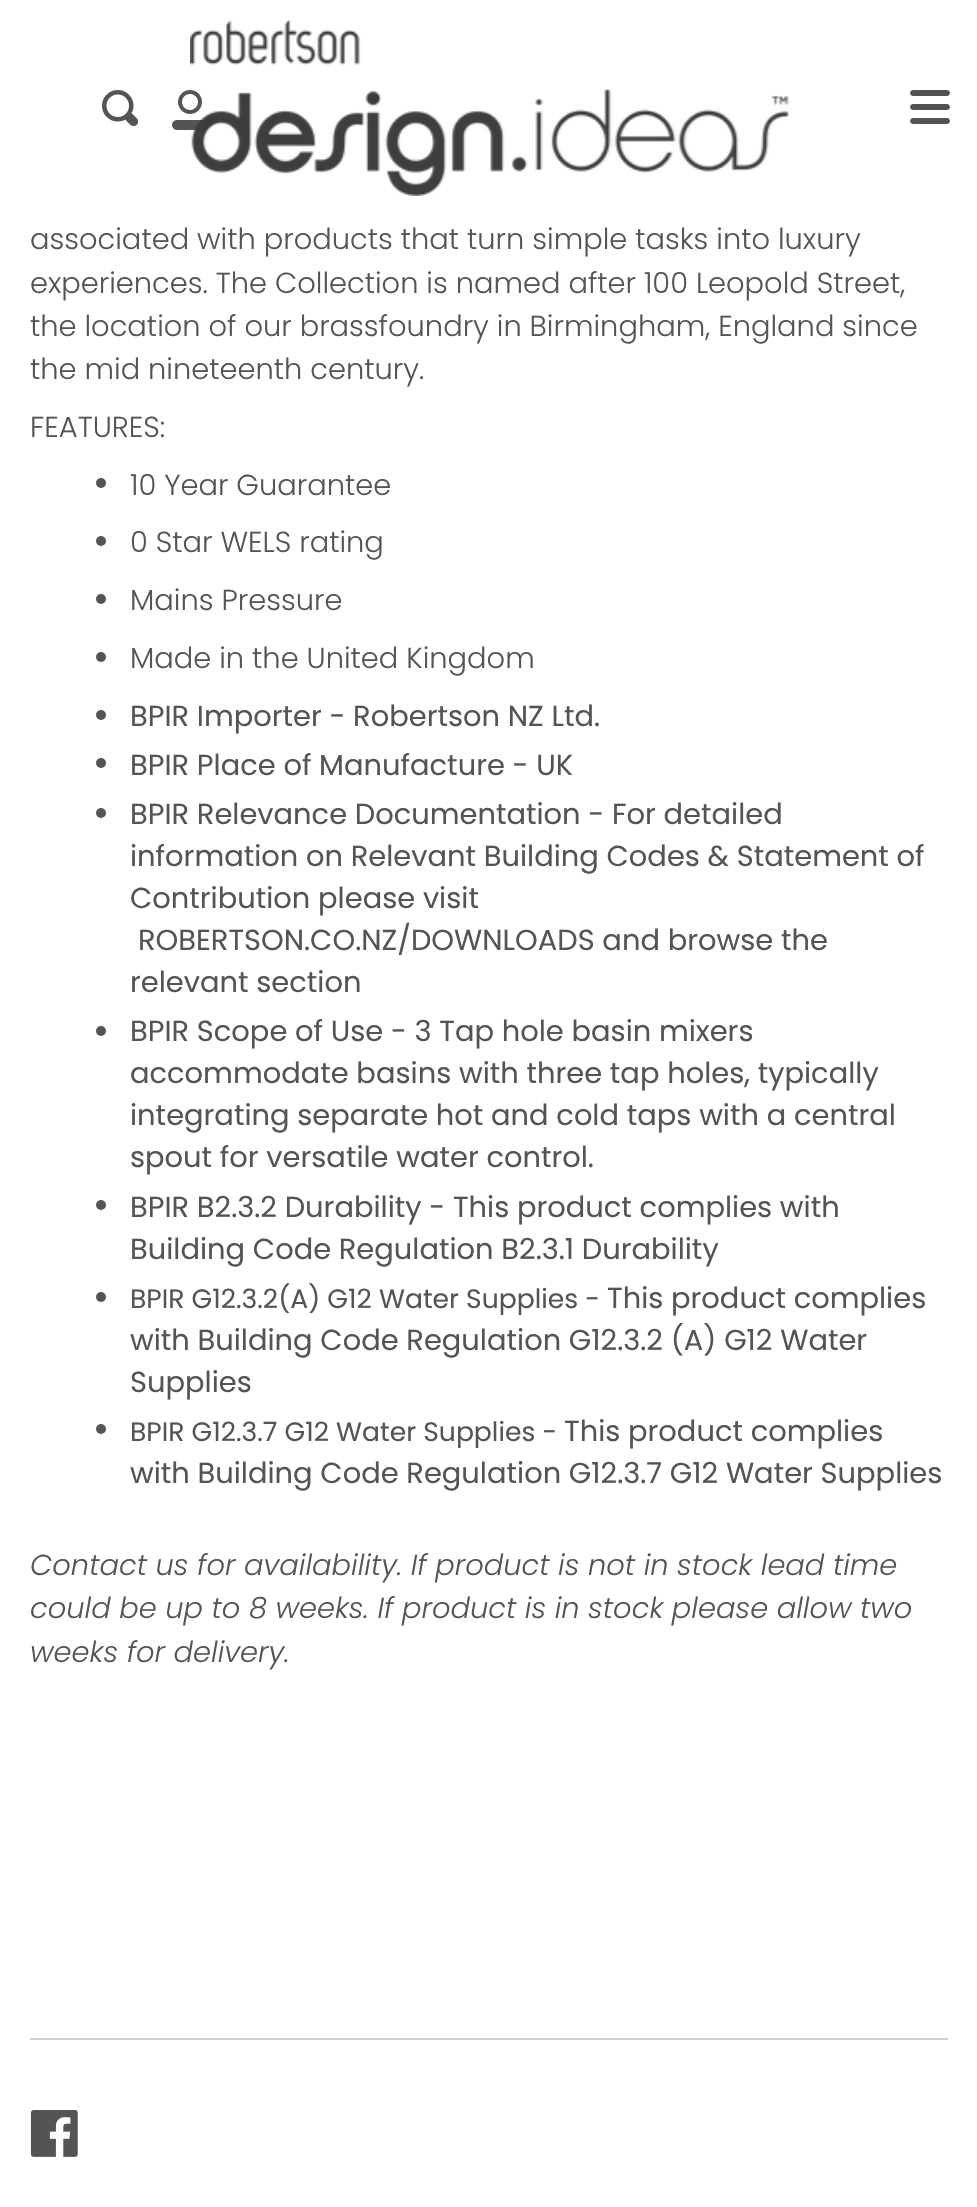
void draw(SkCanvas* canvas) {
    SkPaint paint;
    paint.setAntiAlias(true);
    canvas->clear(0xFFFFFFFF);
    canvas->drawImageRect(SkImages::DeferredFromEncodedData(SkData::MakeFromFileName("img1.png")), SkRect::MakeXYWH(102, 90, 37, 37), SkSamplingOptions());
    canvas->drawImageRect(SkImages::DeferredFromEncodedData(SkData::MakeFromFileName("img2.png")), SkRect::MakeXYWH(172, 90, 36, 40), SkSamplingOptions());
    canvas->drawImageRect(SkImages::DeferredFromEncodedData(SkData::MakeFromFileName("img3.png")), SkRect::MakeXYWH(190, 20, 600, 176), SkSamplingOptions());
    paint.setColor(0xFF545454);
    canvas->drawPath(SkPathBuilder().moveTo(913, 90).lineTo(944, 90).lineTo(944, 96).lineTo(913, 96).cubicTo(911.5f, 96, 910, 94.5f, 910, 93).cubicTo(910, 91.5f, 911.5f, 90, 913, 90).close().detach(), paint);
    canvas->drawPath(SkPathBuilder().moveTo(916, 90).lineTo(947, 90).cubicTo(948.5f, 90, 950, 91.5f, 950, 93).cubicTo(950, 94.5f, 948.5f, 96, 947, 96).lineTo(916, 96).close().detach(), paint);
    canvas->drawPath(SkPathBuilder().moveTo(913, 104).lineTo(944, 104).lineTo(944, 110).lineTo(913, 110).cubicTo(911.5f, 110, 910, 108.5f, 910, 107).cubicTo(910, 105.5f, 911.5f, 104, 913, 104).close().detach(), paint);
    canvas->drawPath(SkPathBuilder().moveTo(916, 104).lineTo(947, 104).cubicTo(948.5f, 104, 950, 105.5f, 950, 107).cubicTo(950, 108.5f, 948.5f, 110, 947, 110).lineTo(916, 110).close().detach(), paint);
    canvas->drawPath(SkPathBuilder().moveTo(913, 118).lineTo(944, 118).lineTo(944, 124).lineTo(913, 124).cubicTo(911.5f, 124, 910, 122.5f, 910, 121).cubicTo(910, 119.5f, 911.5f, 118, 913, 118).close().detach(), paint);
    canvas->drawPath(SkPathBuilder().moveTo(916, 118).lineTo(947, 118).cubicTo(948.5f, 118, 950, 119.5f, 950, 121).cubicTo(950, 122.5f, 948.5f, 124, 947, 124).lineTo(916, 124).close().detach(), paint);
    SkFont font1(fontMgr->matchFamilyStyle("Poppins", SkFontStyle(300, SkFontStyle::kNormal_Width, SkFontStyle::kUpright_Slant)), 28.9f);
    font1.setSubpixel(true);
    canvas->drawString("associated with products that turn simple tasks into luxury", 30, 249, font1, paint);
    canvas->drawString("experiences. The Collection is named after 100 Leopold Street,", 30, 293, font1, paint);
    canvas->drawString("the location of our brassfoundry in Birmingham, England since", 30, 336, font1, paint);
    canvas->drawString("the mid nineteenth century.", 30, 379, font1, paint);
    canvas->drawString("FEATURES:", 30, 437, font1, paint);
    canvas->drawCircle(101, 483, 5, paint);
    canvas->drawString("10 Year Guarantee", 130, 495, font1, paint);
    canvas->drawCircle(101, 541, 5, paint);
    canvas->drawString("0 Star WELS rating", 130, 552, font1, paint);
    canvas->drawCircle(101, 599, 5, paint);
    canvas->drawString("Mains Pressure", 130, 610, font1, paint);
    canvas->drawCircle(101, 657, 5, paint);
    canvas->drawString("Made in the United Kingdom", 130, 668, font1, paint);
    canvas->drawCircle(101, 715, 5, paint);
    SkFont font2(fontMgr->matchFamilyStyle("Poppins", SkFontStyle::Normal()), 28.9f);
    font2.setSubpixel(true);
    canvas->drawString("BPIR Importer - Robertson NZ Ltd.", 130, 726, font2, paint);
    canvas->drawCircle(101, 763, 5, paint);
    canvas->drawString("BPIR Place of Manufacture - UK", 130, 775, font2, paint);
    canvas->drawCircle(101, 813, 5, paint);
    canvas->drawString("BPIR Relevance Documentation - For detailed", 130, 824, font2, paint);
    canvas->drawString("information on Relevant Building Codes & Statement of", 130, 866, font2, paint);
    canvas->drawString("Contribution please visit", 130, 908, font2, paint);
    canvas->drawString("ROBERTSON.CO.NZ/DOWNLOADS and browse the", 138, 950, font2, paint);
    canvas->drawString("relevant section", 130, 992, font2, paint);
    canvas->drawCircle(101, 1031, 5, paint);
    canvas->drawString("BPIR Scope of Use - 3 Tap hole basin mixers", 130, 1041, font2, paint);
    canvas->drawString("accommodate basins with three tap holes, typically", 130, 1083, font2, paint);
    canvas->drawString("integrating separate hot and cold taps with a central", 130, 1125, font2, paint);
    canvas->drawString("spout for versatile water control.", 130, 1167, font2, paint);
    canvas->drawCircle(101, 1205, 5, paint);
    canvas->drawString("BPIR B2.3.2 Durability - This product complies with", 130, 1217, font2, paint);
    canvas->drawString("Building Code Regulation B2.3.1 Durability", 130, 1259, font2, paint);
    canvas->drawCircle(101, 1297, 5, paint);
    SkFont font3(fontMgr->matchFamilyStyle("Poppins", SkFontStyle::Normal()), 26.6f);
    font3.setSubpixel(true);
    canvas->drawString("BPIR G12.3.2(A) G12 Water Supplies -", 130, 1308, font3, paint);
    canvas->drawString("This product complies", 607, 1308, font2, paint);
    canvas->drawString("with Building Code Regulation G12.3.2 (A) G12 Water", 130, 1350, font2, paint);
    canvas->drawString("Supplies", 130, 1392, font2, paint);
    canvas->drawCircle(101, 1429, 5, paint);
    canvas->drawString("BPIR G12.3.7 G12 Water Supplies -", 130, 1441, font3, paint);
    canvas->drawString("This product complies", 564, 1441, font2, paint);
    canvas->drawString("with Building Code Regulation G12.3.7 G12 Water Supplies", 130, 1483, font2, paint);
    SkFont font4(fontMgr->matchFamilyStyle("Poppins", SkFontStyle(300, SkFontStyle::kNormal_Width, SkFontStyle::kItalic_Slant)), 28.9f);
    font4.setSubpixel(true);
    canvas->drawString("Contact us for availability. If product is not in stock lead time", 30, 1575, font4, paint);
    canvas->drawString("could be up to 8 weeks. If product is in stock please allow two", 30, 1618, font4, paint);
    canvas->drawString("weeks for delivery.", 30, 1662, font4, paint);
    paint.setColor(0xFFD1D1D1);
    canvas->drawRect(SkRect::MakeXYWH(30, 2038, 918, 2), paint);
    canvas->drawImageRect(SkImages::DeferredFromEncodedData(SkData::MakeFromFileName("img4.png")), SkRect::MakeXYWH(30, 2110, 48, 47), SkSamplingOptions());
}
